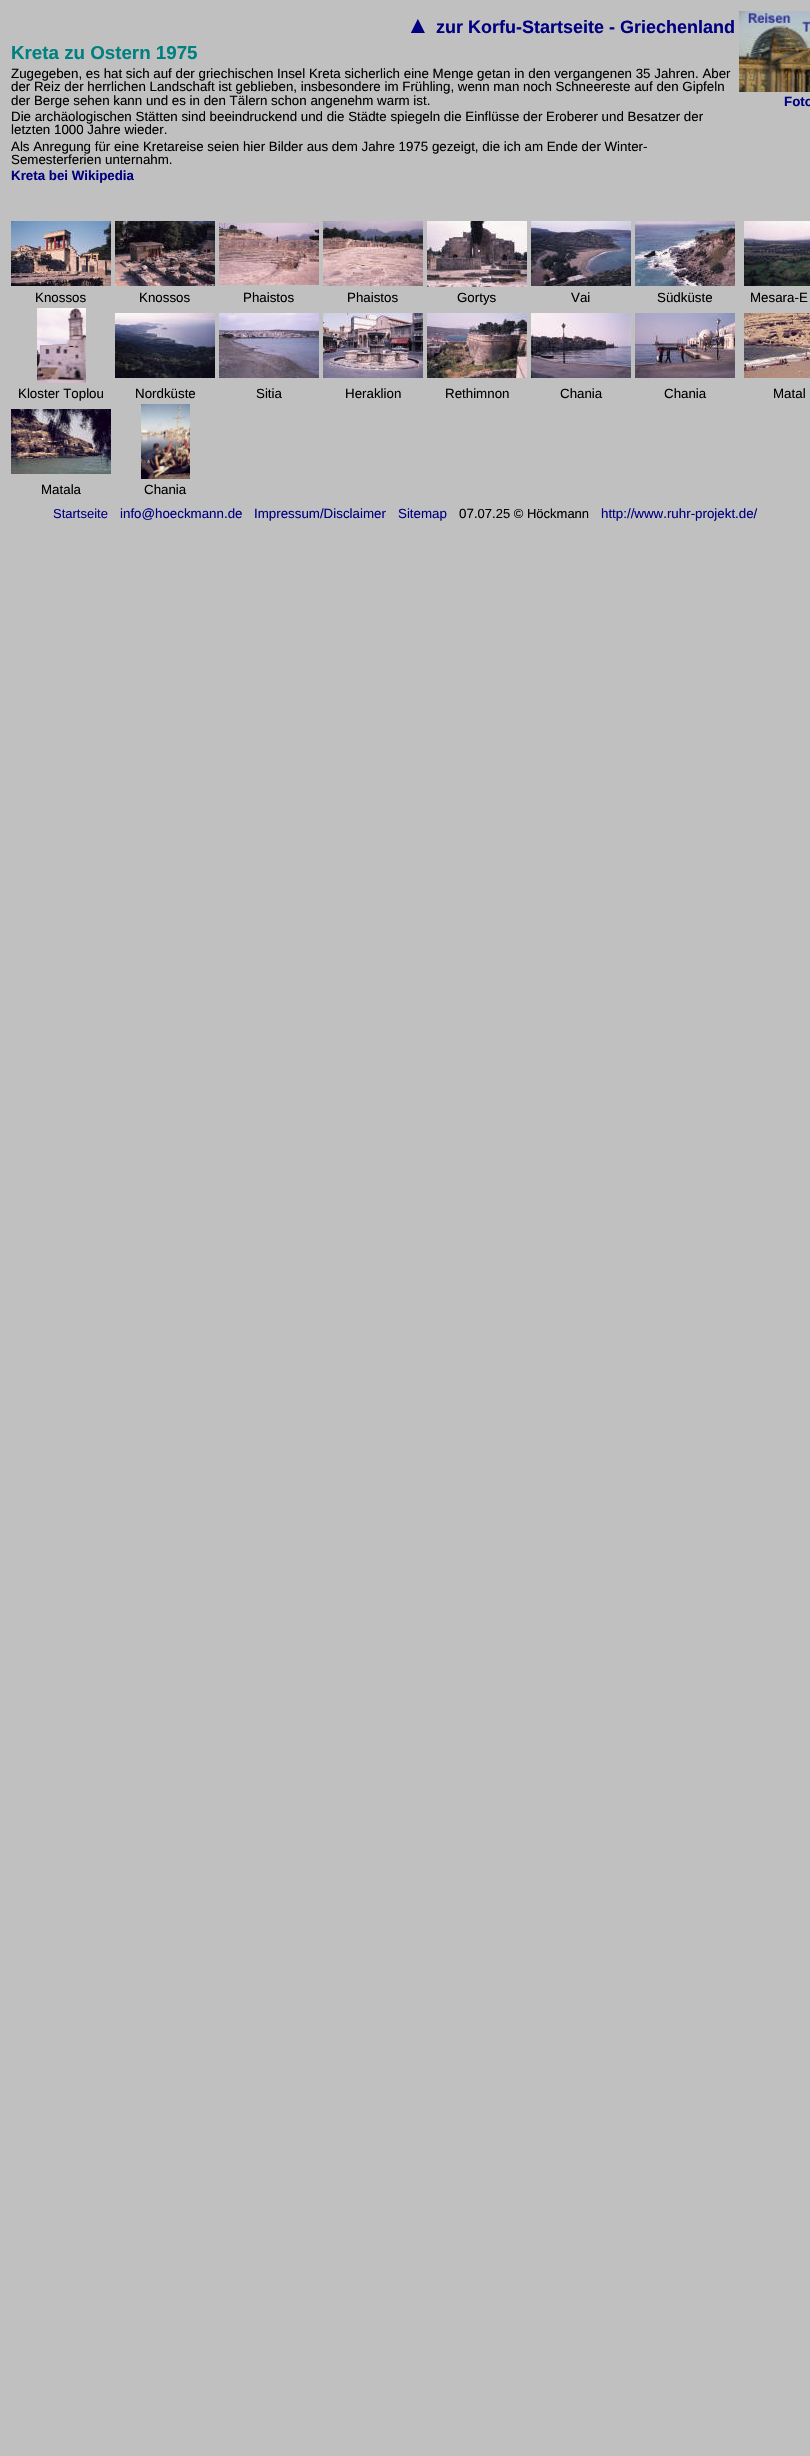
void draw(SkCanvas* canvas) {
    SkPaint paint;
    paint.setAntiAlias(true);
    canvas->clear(0xFFC0C0C0);
    SkFont font1(fontMgr->matchFamilyStyle("Liberation Sans", SkFontStyle::Bold()), 24);
    font1.setSubpixel(true);
    paint.setColor(0xFF000080);
    canvas->drawString("▲", 406, 33, font1, paint);
    SkFont font2(fontMgr->matchFamilyStyle("Liberation Sans", SkFontStyle::Bold()), 18);
    font2.setSubpixel(true);
    canvas->drawString("zur Korfu-Startseite - Griechenland", 436, 33, font2, paint);
    SkFont font3(fontMgr->matchFamilyStyle("Liberation Sans", SkFontStyle::Bold()), 18.75f);
    font3.setSubpixel(true);
    paint.setColor(0xFF008080);
    canvas->drawString("Kreta zu Ostern 1975", 11, 59, font3, paint);
    SkFont font4(fontMgr->matchFamilyStyle("Liberation Sans", SkFontStyle::Normal()), 13.33f);
    font4.setSubpixel(true);
    paint.setColor(0xFF000000);
    canvas->drawString("Zugegeben, es hat sich auf der griechischen Insel Kreta sicherlich eine Menge getan in den vergangenen 35 Jahren. Aber", 11, 78, font4, paint);
    canvas->drawString("der Reiz der herrlichen Landschaft ist geblieben, insbesondere im Frühling, wenn man noch Schneereste auf den Gipfeln", 11, 91, font4, paint);
    canvas->drawString("der Berge sehen kann und es in den Tälern schon angenehm warm ist.", 11, 105, font4, paint);
    canvas->drawString("Die archäologischen Stätten sind beeindruckend und die Städte spiegeln die Einflüsse der Eroberer und Besatzer der", 11, 121, font4, paint);
    canvas->drawString("letzten 1000 Jahre wieder.", 11, 134, font4, paint);
    canvas->drawString("Als Anregung für eine Kretareise seien hier Bilder aus dem Jahre 1975 gezeigt, die ich am Ende der Winter-", 11, 151, font4, paint);
    canvas->drawString("Semesterferien unternahm.", 11, 164, font4, paint);
    SkFont font5(fontMgr->matchFamilyStyle("Liberation Sans", SkFontStyle::Bold()), 13.33f);
    font5.setSubpixel(true);
    paint.setColor(0xFF000080);
    canvas->drawString("Kreta bei Wikipedia", 11, 180, font5, paint);
    canvas->drawImageRect(SkImages::DeferredFromEncodedData(SkData::MakeFromFileName("img1.png")), SkRect::MakeXYWH(739, 11, 71, 81), SkSamplingOptions());
    canvas->drawString("Foto", 784, 106, font5, paint);
    canvas->drawImageRect(SkImages::DeferredFromEncodedData(SkData::MakeFromFileName("img2.png")), SkRect::MakeXYWH(11, 221, 100, 65), SkSamplingOptions());
    canvas->drawImageRect(SkImages::DeferredFromEncodedData(SkData::MakeFromFileName("img3.png")), SkRect::MakeXYWH(115, 221, 100, 65), SkSamplingOptions());
    canvas->drawImageRect(SkImages::DeferredFromEncodedData(SkData::MakeFromFileName("img4.png")), SkRect::MakeXYWH(219, 223, 100, 62), SkSamplingOptions());
    canvas->drawImageRect(SkImages::DeferredFromEncodedData(SkData::MakeFromFileName("img5.png")), SkRect::MakeXYWH(323, 221, 100, 65), SkSamplingOptions());
    canvas->drawImageRect(SkImages::DeferredFromEncodedData(SkData::MakeFromFileName("img6.png")), SkRect::MakeXYWH(427, 221, 100, 66), SkSamplingOptions());
    canvas->drawImageRect(SkImages::DeferredFromEncodedData(SkData::MakeFromFileName("img7.png")), SkRect::MakeXYWH(531, 221, 100, 65), SkSamplingOptions());
    canvas->drawImageRect(SkImages::DeferredFromEncodedData(SkData::MakeFromFileName("img8.png")), SkRect::MakeXYWH(635, 221, 100, 65), SkSamplingOptions());
    canvas->drawImageRect(SkImages::DeferredFromEncodedData(SkData::MakeFromFileName("img9.png")), SkRect::MakeXYWH(744, 221, 66, 65), SkSamplingOptions());
    paint.setColor(0xFF000000);
    canvas->drawString("Knossos", 35, 302, font4, paint);
    canvas->drawString("Knossos", 139, 302, font4, paint);
    canvas->drawString("Phaistos", 243, 302, font4, paint);
    canvas->drawString("Phaistos", 347, 302, font4, paint);
    canvas->drawString("Gortys", 457, 302, font4, paint);
    canvas->drawString("Vai", 571, 302, font4, paint);
    canvas->drawString("Südküste", 657, 302, font4, paint);
    canvas->drawString("Mesara-E", 750, 302, font4, paint);
    canvas->drawImageRect(SkImages::DeferredFromEncodedData(SkData::MakeFromFileName("img10.png")), SkRect::MakeXYWH(37, 308, 49, 75), SkSamplingOptions());
    canvas->drawImageRect(SkImages::DeferredFromEncodedData(SkData::MakeFromFileName("img11.png")), SkRect::MakeXYWH(115, 313, 100, 65), SkSamplingOptions());
    canvas->drawImageRect(SkImages::DeferredFromEncodedData(SkData::MakeFromFileName("img12.png")), SkRect::MakeXYWH(219, 313, 100, 65), SkSamplingOptions());
    canvas->drawImageRect(SkImages::DeferredFromEncodedData(SkData::MakeFromFileName("img13.png")), SkRect::MakeXYWH(323, 313, 100, 65), SkSamplingOptions());
    canvas->drawImageRect(SkImages::DeferredFromEncodedData(SkData::MakeFromFileName("img14.png")), SkRect::MakeXYWH(427, 313, 100, 65), SkSamplingOptions());
    canvas->drawImageRect(SkImages::DeferredFromEncodedData(SkData::MakeFromFileName("img15.png")), SkRect::MakeXYWH(531, 313, 100, 65), SkSamplingOptions());
    canvas->drawImageRect(SkImages::DeferredFromEncodedData(SkData::MakeFromFileName("img16.png")), SkRect::MakeXYWH(635, 313, 100, 65), SkSamplingOptions());
    canvas->drawImageRect(SkImages::DeferredFromEncodedData(SkData::MakeFromFileName("img17.png")), SkRect::MakeXYWH(744, 313, 66, 65), SkSamplingOptions());
    canvas->drawString("Kloster Toplou", 18, 398, font4, paint);
    canvas->drawString("Nordküste", 135, 398, font4, paint);
    canvas->drawString("Sitia", 256, 398, font4, paint);
    canvas->drawString("Heraklion", 345, 398, font4, paint);
    canvas->drawString("Rethimnon", 445, 398, font4, paint);
    canvas->drawString("Chania", 560, 398, font4, paint);
    canvas->drawString("Chania", 664, 398, font4, paint);
    canvas->drawString("Matal", 773, 398, font4, paint);
    canvas->drawImageRect(SkImages::DeferredFromEncodedData(SkData::MakeFromFileName("img18.png")), SkRect::MakeXYWH(11, 409, 100, 65), SkSamplingOptions());
    canvas->drawImageRect(SkImages::DeferredFromEncodedData(SkData::MakeFromFileName("img19.png")), SkRect::MakeXYWH(141, 404, 49, 75), SkSamplingOptions());
    canvas->drawString("Matala", 41, 494, font4, paint);
    canvas->drawString("Chania", 144, 494, font4, paint);
    SkFont font6(fontMgr->matchFamilyStyle("Liberation Sans", SkFontStyle::Normal()), 13);
    font6.setSubpixel(true);
    paint.setColor(0xFF000080);
    canvas->drawString("Startseite", 53, 518, font6, paint);
    canvas->drawString("info@hoeckmann.de", 120, 518, font4, paint);
    canvas->drawString("Impressum/Disclaimer", 254, 518, font4, paint);
    canvas->drawString("Sitemap", 398, 518, font4, paint);
    paint.setColor(0xFF000000);
    canvas->drawString("07", 459, 518, font4, paint);
    canvas->drawString(".07.25 © Höckmann", 474, 518, font6, paint);
    paint.setColor(0xFF000080);
    canvas->drawString("http://www.ruhr-projekt.de/", 601, 518, font4, paint);
}
